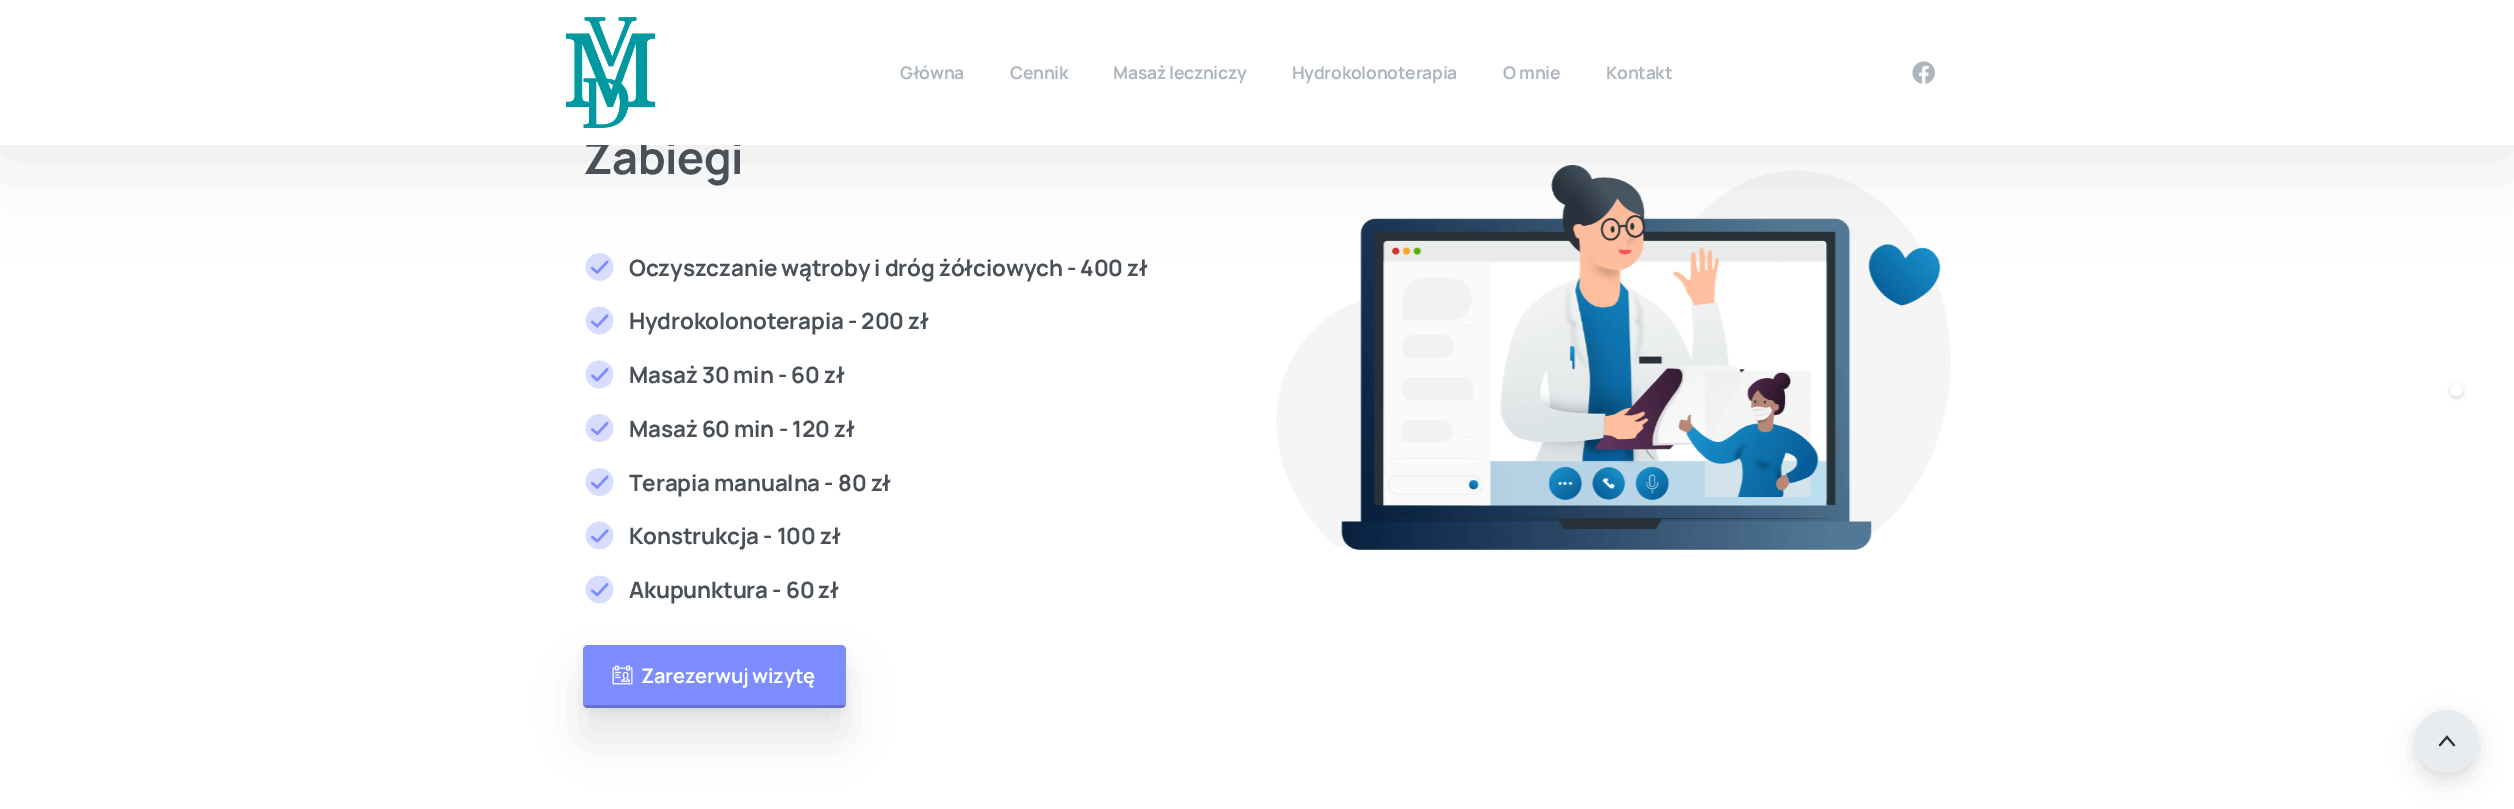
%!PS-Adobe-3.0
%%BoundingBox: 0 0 2514 809
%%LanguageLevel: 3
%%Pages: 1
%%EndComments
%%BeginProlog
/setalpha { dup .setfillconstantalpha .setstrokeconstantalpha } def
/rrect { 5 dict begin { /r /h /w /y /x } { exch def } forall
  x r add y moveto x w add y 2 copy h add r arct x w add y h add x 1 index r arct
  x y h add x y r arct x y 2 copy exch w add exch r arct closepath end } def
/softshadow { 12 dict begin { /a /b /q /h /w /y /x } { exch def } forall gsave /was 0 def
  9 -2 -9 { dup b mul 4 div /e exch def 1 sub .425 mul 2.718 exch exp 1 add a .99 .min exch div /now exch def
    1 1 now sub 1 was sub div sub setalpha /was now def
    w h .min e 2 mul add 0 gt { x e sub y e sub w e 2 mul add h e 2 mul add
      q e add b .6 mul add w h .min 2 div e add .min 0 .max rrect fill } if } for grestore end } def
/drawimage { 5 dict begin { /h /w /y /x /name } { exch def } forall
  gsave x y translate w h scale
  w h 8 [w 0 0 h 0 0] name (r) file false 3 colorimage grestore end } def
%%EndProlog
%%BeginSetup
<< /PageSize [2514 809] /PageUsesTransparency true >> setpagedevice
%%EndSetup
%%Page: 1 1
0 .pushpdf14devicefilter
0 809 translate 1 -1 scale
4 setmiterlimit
1 setgray
0 0 2514 809 rectfill
(images/3.raw) 585 253 29 28 drawimage
(images/8.raw) 1276 165 675 385 drawimage
0 setgray
0 6 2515 145 0 50 0.1 softshadow
(images/4.raw) 585 306 29 29 drawimage
(images/5.raw) 585 360 29 29 drawimage
(images/6.raw) 585 414 29 28 drawimage
(images/3.raw) 585 468 29 28 drawimage
(images/4.raw) 585 521 29 29 drawimage
(images/5.raw) 585 575 29 29 drawimage
583 675 263 63 5 22 0.1 softshadow
583 650 263 63 5 5 0.05 softshadow
0.49 0.553 1 setrgbcolor
583 645 263 63 5 rrect fill
(images/7.raw) 612 665 21 20 drawimage
gsave
583 645 263 63 5 rrect clip newpath
0.2 setalpha
0 setgray
583 705 263 3 1.5 rrect fill
grestore
0 setgray
2450 385 13 13 6.5 2 0.15 softshadow
1 setgray
2450 384 13 12 6 rrect fill
0 setgray
2415 720 63 63 31.5 12 0.1 softshadow
2415 713 63 62 31 4 0.05 softshadow
0.914 0.925 0.937 setrgbcolor
newpath 2446.5 741.5 31.5 0 360 arc closepath fill
(images/9.raw) 2438 735 18 12 drawimage
/Manrope-Bold [45 0 0 -45 0 0] selectfont
0.286 0.314 0.341 setrgbcolor
583 174 moveto -0.5 0 (Zabiegi) ashow
1 setgray
0 0 2514 145 rectfill
(images/2.raw) 1912 61 23 23 drawimage
/Manrope-Bold [17.5 0 0 -17.5 0 0] selectfont
0.678 0.71 0.741 setrgbcolor
1606 79 moveto -0.25 0 (Kontakt) ashow
1503 79 moveto -0.25 0 (O mnie) ashow
1292 79 moveto -0.25 0 (Hydrokolonoterapia) ashow
1113 79 moveto -0.25 0 (Masaż leczniczy) ashow
1010 79 moveto -0.25 0 (Cennik) ashow
900 79 moveto -0.25 0 (Główna) ashow
(images/1.raw) 566 17 90 111 drawimage
/Manrope-Bold [22.5 0 0 -22.5 0 0] selectfont
0.286 0.314 0.341 setrgbcolor
629 276 moveto -0.2 0 (Oczyszczanie wątroby i dróg żółciowych - 400 zł) ashow
629 329 moveto -0.2 0 (Hydrokolonoterapia - 200 zł) ashow
629 383 moveto -0.2 0 (Masaż 30 min - 60 zł) ashow
629 437 moveto -0.2 0 (Masaż 60 min - 120 zł) ashow
629 491 moveto -0.2 0 (Terapia manualna - 80 zł) ashow
629 544 moveto -0.2 0 (Konstrukcja - 100 zł) ashow
629 598 moveto -0.2 0 (Akupunktura - 60 zł) ashow
/Manrope-Bold [20 0 0 -20 0 0] selectfont
1 setgray
641 683 moveto -0.25 0 (Zarezerwuj wizytę) ashow
.poppdf14devicefilter showpage
%%EOF
